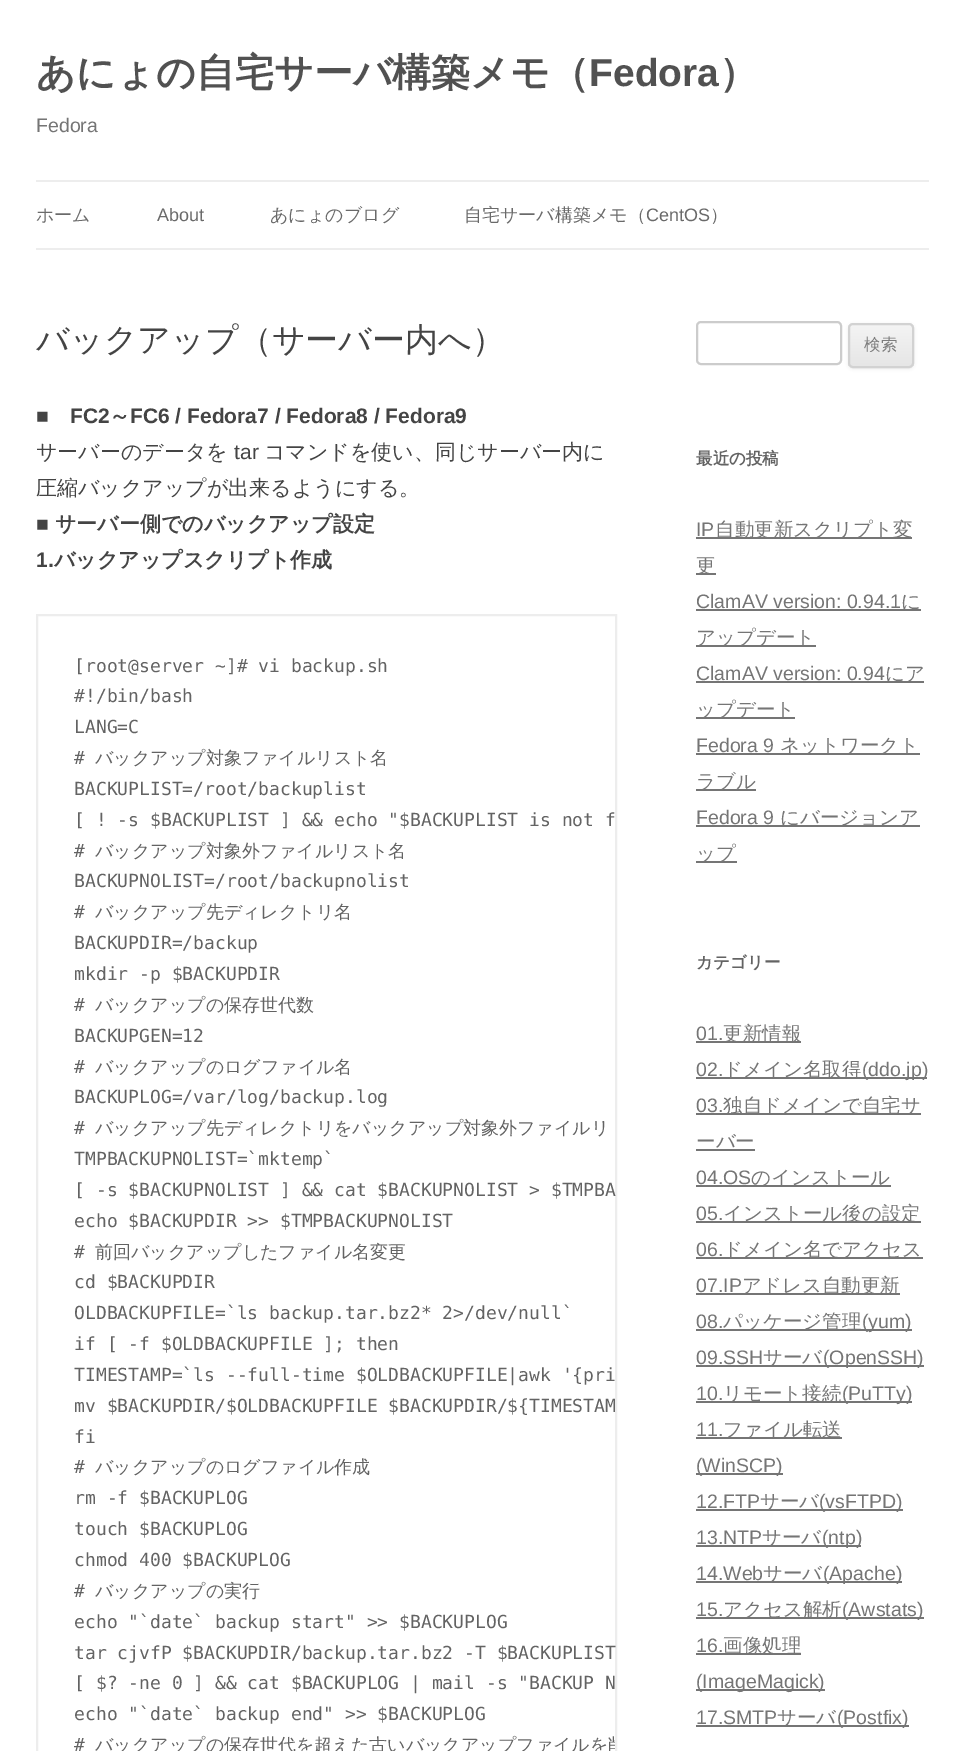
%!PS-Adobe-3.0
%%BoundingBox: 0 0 964 1751
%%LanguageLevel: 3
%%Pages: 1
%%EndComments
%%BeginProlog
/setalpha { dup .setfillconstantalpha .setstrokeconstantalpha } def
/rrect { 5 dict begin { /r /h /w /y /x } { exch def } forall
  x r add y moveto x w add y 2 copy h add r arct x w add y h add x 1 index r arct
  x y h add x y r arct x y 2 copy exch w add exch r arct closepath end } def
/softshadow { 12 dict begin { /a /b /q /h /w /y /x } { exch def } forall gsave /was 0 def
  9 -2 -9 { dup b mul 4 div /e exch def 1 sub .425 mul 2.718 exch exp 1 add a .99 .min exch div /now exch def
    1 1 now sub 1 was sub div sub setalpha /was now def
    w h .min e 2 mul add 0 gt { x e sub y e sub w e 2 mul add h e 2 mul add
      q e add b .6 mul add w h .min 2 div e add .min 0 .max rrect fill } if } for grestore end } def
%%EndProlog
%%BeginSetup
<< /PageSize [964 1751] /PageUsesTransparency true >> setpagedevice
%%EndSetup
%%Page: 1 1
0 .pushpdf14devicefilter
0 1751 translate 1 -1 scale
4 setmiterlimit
1 setgray
0 0 964 1751 rectfill
0.929 setgray
36 180 893 2 rectfill
36 248 893 2 rectfill
2 setlinewidth
37 615 579 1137 rectstroke
0.8 setgray
697 322 144 42 4 rrect stroke
0.251 setgray
848 324 66 45 5 1.5 0.1 softshadow
gsave
848 323 66 45 5 rrect clip newpath
gsave newpath 848 324 moveto 914 324 lineto 914 366 lineto 848 366 lineto closepath clip newpath
<< /ShadingType 2 /ColorSpace /DeviceRGB /Coords [881 324 881 366] /Extend [true true] /Function << /FunctionType 2 /Domain [0 1] /C0 [0.957 0.957 0.957] /C1 [0.902 0.902 0.902] /N 1 >> >> shfill grestore
grestore
0.824 setgray
849 324 64 43 4 rrect stroke
0.459 setgray
696 537 216 2 rectfill
696 573 20 2 rectfill
696 609 225 2 rectfill
696 645 120 2 rectfill
696 681 228 2 rectfill
696 717 99 2 rectfill
696 753 224 2 rectfill
696 789 60 2 rectfill
696 825 224 2 rectfill
696 861 41 2 rectfill
696 1041 105 2 rectfill
696 1077 231 2 rectfill
696 1113 225 2 rectfill
696 1149 59 2 rectfill
696 1185 195 2 rectfill
696 1221 225 2 rectfill
696 1257 227 2 rectfill
696 1293 204 2 rectfill
696 1329 216 2 rectfill
696 1365 228 2 rectfill
696 1401 216 2 rectfill
696 1437 146 2 rectfill
696 1473 87 2 rectfill
696 1509 207 2 rectfill
696 1545 165 2 rectfill
696 1581 206 2 rectfill
696 1617 228 2 rectfill
696 1653 105 2 rectfill
696 1689 129 2 rectfill
696 1725 213 2 rectfill
/WenQuanYiZenHei-Bold [39 0 0 -39 0 0] selectfont
0.318 setgray
36 86 moveto (あにょの自宅サーバ構築メモ（) show
/LiberationSans-Bold [39 0 0 -39 0 0] selectfont
589 86 moveto (Fedora) show
/WenQuanYiZenHei-Bold [39 0 0 -39 0 0] selectfont
719 86 moveto (）) show
/LiberationSans-Regular [19.5 0 0 -19.5 0 0] selectfont
0.459 setgray
36 132 moveto (Fedora) show
/WenQuanYiZenHei-Medium [18 0 0 -18 0 0] selectfont
0.416 setgray
36 221 moveto (ホーム) show
/LiberationSans-Regular [18 0 0 -18 0 0] selectfont
157 221 moveto (About) show
/WenQuanYiZenHei-Medium [18 0 0 -18 0 0] selectfont
270 221 moveto (あにょのブログ) show
464 221 moveto (自宅サーバ構築メモ（) show
/LiberationSans-Regular [18 0 0 -18 0 0] selectfont
646 221 moveto (CentOS) show
/WenQuanYiZenHei-Medium [18 0 0 -18 0 0] selectfont
710 221 moveto (）) show
/WenQuanYiZenHei-Medium [33 0 0 -33 0 0] selectfont
0.267 setgray
36 351 moveto (バックアップ（サーバー内へ）) show
/LiberationSans-Bold [21 0 0 -21 0 0] selectfont
36 423 moveto (■) show
70 423 moveto (FC2) show
/WenQuanYiZenHei-Bold [21 0 0 -21 0 0] selectfont
109 423 moveto (～) show
/LiberationSans-Bold [21 0 0 -21 0 0] selectfont
130 423 moveto (FC6 / Fedora7 / Fedora8 / Fedora9) show
/WenQuanYiZenHei-Medium [21 0 0 -21 0 0] selectfont
36 459 moveto (サーバーのデータを) show
/LiberationSans-Regular [21 0 0 -21 0 0] selectfont
234 459 moveto (tar) show
/WenQuanYiZenHei-Medium [21 0 0 -21 0 0] selectfont
264 459 moveto (コマンドを使い、同じサーバー内に) show
36 495 moveto (圧縮バックアップが出来るようにする。) show
/LiberationSans-Bold [21 0 0 -21 0 0] selectfont
36 531 moveto (■) show
/WenQuanYiZenHei-Bold [21 0 0 -21 0 0] selectfont
55 531 moveto (サーバー側でのバックアップ設定) show
/LiberationSans-Bold [21 0 0 -21 0 0] selectfont
36 567 moveto (1.) show
/WenQuanYiZenHei-Bold [21 0 0 -21 0 0] selectfont
54 567 moveto (バックアップスクリプト作成) show
/DejaVuSansMono-Regular [18 0 0 -18 0 0] selectfont
0.388 setgray
74 672 moveto ([root@server ~]# vi backup.sh) show
74 702 moveto (#!/bin/bash) show
74 733 moveto (LANG=C) show
74 764 moveto (#) show
/WenQuanYiZenHei-Medium [18 0 0 -18 0 0] selectfont
95 764 moveto (バックアップ対象ファイルリスト名) show
/DejaVuSansMono-Regular [18 0 0 -18 0 0] selectfont
74 795 moveto (BACKUPLIST=/root/backuplist) show
74 826 moveto ([ ! -s $BACKUPLIST ] && echo "$BACKUPLIST is not f) show
74 857 moveto (#) show
/WenQuanYiZenHei-Medium [18 0 0 -18 0 0] selectfont
95 857 moveto (バックアップ対象外ファイルリスト名) show
/DejaVuSansMono-Regular [18 0 0 -18 0 0] selectfont
74 887 moveto (BACKUPNOLIST=/root/backupnolist) show
74 918 moveto (#) show
/WenQuanYiZenHei-Medium [18 0 0 -18 0 0] selectfont
95 918 moveto (バックアップ先ディレクトリ名) show
/DejaVuSansMono-Regular [18 0 0 -18 0 0] selectfont
74 949 moveto (BACKUPDIR=/backup) show
74 980 moveto (mkdir -p $BACKUPDIR) show
74 1011 moveto (#) show
/WenQuanYiZenHei-Medium [18 0 0 -18 0 0] selectfont
95 1011 moveto (バックアップの保存世代数) show
/DejaVuSansMono-Regular [18 0 0 -18 0 0] selectfont
74 1042 moveto (BACKUPGEN=12) show
74 1073 moveto (#) show
/WenQuanYiZenHei-Medium [18 0 0 -18 0 0] selectfont
95 1073 moveto (バックアップのログファイル名) show
/DejaVuSansMono-Regular [18 0 0 -18 0 0] selectfont
74 1103 moveto (BACKUPLOG=/var/log/backup.log) show
74 1134 moveto (#) show
/WenQuanYiZenHei-Medium [18 0 0 -18 0 0] selectfont
95 1134 moveto (バックアップ先ディレクトリをバックアップ対象外ファイルリ) show
/DejaVuSansMono-Regular [18 0 0 -18 0 0] selectfont
74 1165 moveto (TMPBACKUPNOLIST=`mktemp`) show
74 1196 moveto ([ -s $BACKUPNOLIST ] && cat $BACKUPNOLIST > $TMPBA) show
74 1227 moveto (echo $BACKUPDIR >> $TMPBACKUPNOLIST) show
74 1258 moveto (#) show
/WenQuanYiZenHei-Medium [18 0 0 -18 0 0] selectfont
95 1258 moveto (前回バックアップしたファイル名変更) show
/DejaVuSansMono-Regular [18 0 0 -18 0 0] selectfont
74 1288 moveto (cd $BACKUPDIR) show
74 1319 moveto (OLDBACKUPFILE=`ls backup.tar.bz2* 2>/dev/null`) show
74 1350 moveto (if [ -f $OLDBACKUPFILE ]; then) show
74 1381 moveto (TIMESTAMP=`ls --full-time $OLDBACKUPFILE|awk '{pri) show
74 1412 moveto (mv $BACKUPDIR/$OLDBACKUPFILE $BACKUPDIR/${TIMESTAM) show
74 1443 moveto (fi) show
74 1473 moveto (#) show
/WenQuanYiZenHei-Medium [18 0 0 -18 0 0] selectfont
95 1473 moveto (バックアップのログファイル作成) show
/DejaVuSansMono-Regular [18 0 0 -18 0 0] selectfont
74 1504 moveto (rm -f $BACKUPLOG) show
74 1535 moveto (touch $BACKUPLOG) show
74 1566 moveto (chmod 400 $BACKUPLOG) show
74 1597 moveto (#) show
/WenQuanYiZenHei-Medium [18 0 0 -18 0 0] selectfont
95 1597 moveto (バックアップの実行) show
/DejaVuSansMono-Regular [18 0 0 -18 0 0] selectfont
74 1628 moveto (echo "`date` backup start" >> $BACKUPLOG) show
74 1659 moveto (tar cjvfP $BACKUPDIR/backup.tar.bz2 -T $BACKUPLIST) show
74 1689 moveto ([ $? -ne 0 ] && cat $BACKUPLOG | mail -s "BACKUP N) show
74 1720 moveto (echo "`date` backup end" >> $BACKUPLOG) show
74 1751 moveto (#) show
gsave
38 615 577 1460 rectclip
/WenQuanYiZenHei-Medium [18 0 0 -18 0 0] selectfont
95 1751 moveto (バックアップの保存世代を超えた古いバックアップファイルを削) show
grestore
/WenQuanYiZenHei-Medium [16.5 0 0 -16.5 0 0] selectfont
0.486 setgray
864 350 moveto (検索) show
/WenQuanYiZenHei-Bold [16.5 0 0 -16.5 0 0] selectfont
0.388 setgray
696 464 moveto (最近の投稿) show
/LiberationSans-Regular [19.5 0 0 -19.5 0 0] selectfont
0.459 setgray
696 536 moveto (IP) show
/WenQuanYiZenHei-Medium [19.5 0 0 -19.5 0 0] selectfont
715 536 moveto (自動更新スクリプト変) show
696 572 moveto (更) show
/LiberationSans-Regular [19.5 0 0 -19.5 0 0] selectfont
696 608 moveto (ClamAV version: 0.94.1) show
/WenQuanYiZenHei-Medium [19.5 0 0 -19.5 0 0] selectfont
901 608 moveto (に) show
696 644 moveto (アップデート) show
/LiberationSans-Regular [19.5 0 0 -19.5 0 0] selectfont
696 680 moveto (ClamAV version: 0.94) show
/WenQuanYiZenHei-Medium [19.5 0 0 -19.5 0 0] selectfont
885 680 moveto (にア) show
696 716 moveto (ップデート) show
/LiberationSans-Regular [19.5 0 0 -19.5 0 0] selectfont
696 752 moveto (Fedora 9) show
/WenQuanYiZenHei-Medium [19.5 0 0 -19.5 0 0] selectfont
780 752 moveto (ネットワークト) show
696 788 moveto (ラブル) show
/LiberationSans-Regular [19.5 0 0 -19.5 0 0] selectfont
696 824 moveto (Fedora 9) show
/WenQuanYiZenHei-Medium [19.5 0 0 -19.5 0 0] selectfont
780 824 moveto (にバージョンア) show
696 860 moveto (ップ) show
/WenQuanYiZenHei-Bold [16.5 0 0 -16.5 0 0] selectfont
0.388 setgray
696 968 moveto (カテゴリー) show
/LiberationSans-Regular [19.5 0 0 -19.5 0 0] selectfont
0.459 setgray
696 1040 moveto (01.) show
/WenQuanYiZenHei-Medium [19.5 0 0 -19.5 0 0] selectfont
723 1040 moveto (更新情報) show
/LiberationSans-Regular [19.5 0 0 -19.5 0 0] selectfont
696 1076 moveto (02.) show
/WenQuanYiZenHei-Medium [19.5 0 0 -19.5 0 0] selectfont
723 1076 moveto (ドメイン名取得) show
/LiberationSans-Regular [19.5 0 0 -19.5 0 0] selectfont
862 1076 moveto (\(ddo.jp\)) show
696 1112 moveto (03.) show
/WenQuanYiZenHei-Medium [19.5 0 0 -19.5 0 0] selectfont
723 1112 moveto (独自ドメインで自宅サ) show
696 1148 moveto (ーバー) show
/LiberationSans-Regular [19.5 0 0 -19.5 0 0] selectfont
696 1184 moveto (04.OS) show
/WenQuanYiZenHei-Medium [19.5 0 0 -19.5 0 0] selectfont
751 1184 moveto (のインストール) show
/LiberationSans-Regular [19.5 0 0 -19.5 0 0] selectfont
696 1220 moveto (05.) show
/WenQuanYiZenHei-Medium [19.5 0 0 -19.5 0 0] selectfont
723 1220 moveto (インストール後の設定) show
/LiberationSans-Regular [19.5 0 0 -19.5 0 0] selectfont
696 1256 moveto (06.) show
/WenQuanYiZenHei-Medium [19.5 0 0 -19.5 0 0] selectfont
723 1256 moveto (ドメイン名でアクセス) show
/LiberationSans-Regular [19.5 0 0 -19.5 0 0] selectfont
696 1292 moveto (07.IP) show
/WenQuanYiZenHei-Medium [19.5 0 0 -19.5 0 0] selectfont
742 1292 moveto (アドレス自動更新) show
/LiberationSans-Regular [19.5 0 0 -19.5 0 0] selectfont
696 1328 moveto (08.) show
/WenQuanYiZenHei-Medium [19.5 0 0 -19.5 0 0] selectfont
723 1328 moveto (パッケージ管理) show
/LiberationSans-Regular [19.5 0 0 -19.5 0 0] selectfont
862 1328 moveto (\(yum\)) show
696 1364 moveto (09.SSH) show
/WenQuanYiZenHei-Medium [19.5 0 0 -19.5 0 0] selectfont
763 1364 moveto (サーバ) show
/LiberationSans-Regular [19.5 0 0 -19.5 0 0] selectfont
823 1364 moveto (\(OpenSSH\)) show
696 1400 moveto (10.) show
/WenQuanYiZenHei-Medium [19.5 0 0 -19.5 0 0] selectfont
723 1400 moveto (リモート接続) show
/LiberationSans-Regular [19.5 0 0 -19.5 0 0] selectfont
842 1400 moveto (\(PuTTy\)) show
696 1436 moveto (11.) show
/WenQuanYiZenHei-Medium [19.5 0 0 -19.5 0 0] selectfont
723 1436 moveto (ファイル転送) show
/LiberationSans-Regular [19.5 0 0 -19.5 0 0] selectfont
696 1472 moveto (\(WinSCP\)) show
696 1508 moveto (12.FTP) show
/WenQuanYiZenHei-Medium [19.5 0 0 -19.5 0 0] selectfont
760 1508 moveto (サーバ) show
/LiberationSans-Regular [19.5 0 0 -19.5 0 0] selectfont
819 1508 moveto (\(vsFTPD\)) show
696 1544 moveto (13.NTP) show
/WenQuanYiZenHei-Medium [19.5 0 0 -19.5 0 0] selectfont
762 1544 moveto (サーバ) show
/LiberationSans-Regular [19.5 0 0 -19.5 0 0] selectfont
822 1544 moveto (\(ntp\)) show
696 1580 moveto (14.Web) show
/WenQuanYiZenHei-Medium [19.5 0 0 -19.5 0 0] selectfont
763 1580 moveto (サーバ) show
/LiberationSans-Regular [19.5 0 0 -19.5 0 0] selectfont
823 1580 moveto (\(Apache\)) show
696 1616 moveto (15.) show
/WenQuanYiZenHei-Medium [19.5 0 0 -19.5 0 0] selectfont
723 1616 moveto (アクセス解析) show
/LiberationSans-Regular [19.5 0 0 -19.5 0 0] selectfont
842 1616 moveto (\(Awstats\)) show
696 1652 moveto (16.) show
/WenQuanYiZenHei-Medium [19.5 0 0 -19.5 0 0] selectfont
723 1652 moveto (画像処理) show
/LiberationSans-Regular [19.5 0 0 -19.5 0 0] selectfont
696 1688 moveto (\(ImageMagick\)) show
696 1724 moveto (17.SMTP) show
/WenQuanYiZenHei-Medium [19.5 0 0 -19.5 0 0] selectfont
777 1724 moveto (サーバ) show
/LiberationSans-Regular [19.5 0 0 -19.5 0 0] selectfont
837 1724 moveto (\(Postfix\)) show
.poppdf14devicefilter showpage
%%EOF
